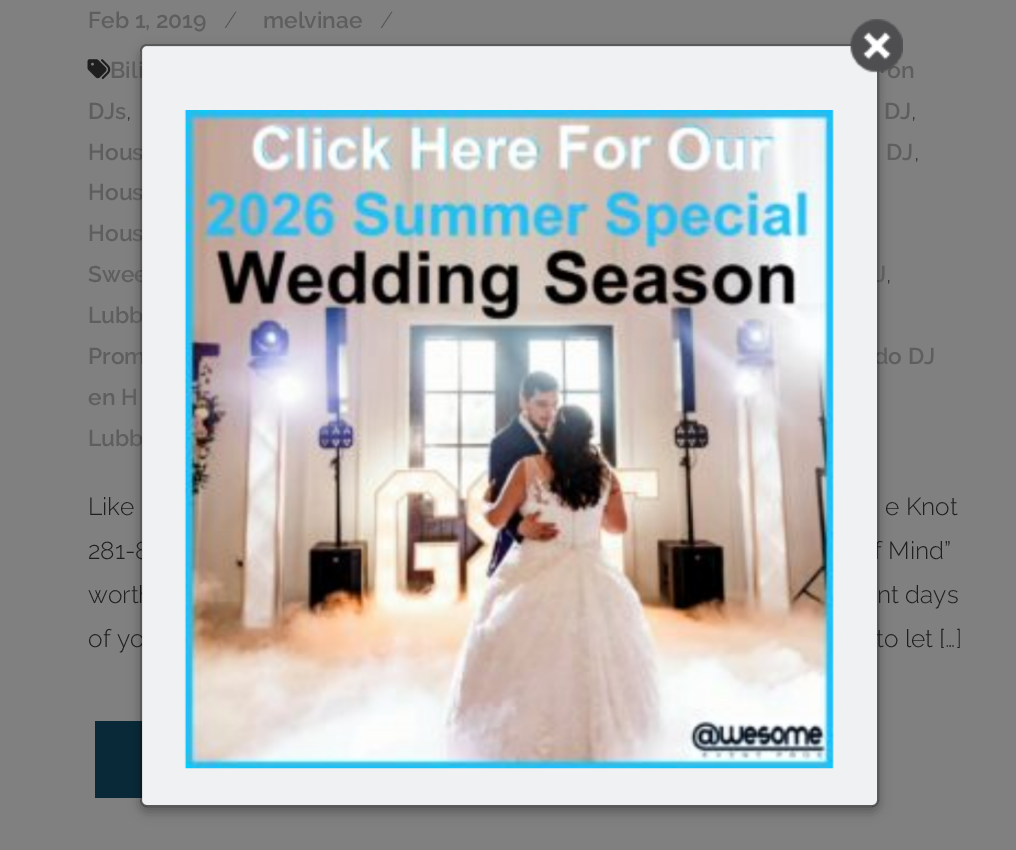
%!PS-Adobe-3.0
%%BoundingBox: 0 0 1016 850
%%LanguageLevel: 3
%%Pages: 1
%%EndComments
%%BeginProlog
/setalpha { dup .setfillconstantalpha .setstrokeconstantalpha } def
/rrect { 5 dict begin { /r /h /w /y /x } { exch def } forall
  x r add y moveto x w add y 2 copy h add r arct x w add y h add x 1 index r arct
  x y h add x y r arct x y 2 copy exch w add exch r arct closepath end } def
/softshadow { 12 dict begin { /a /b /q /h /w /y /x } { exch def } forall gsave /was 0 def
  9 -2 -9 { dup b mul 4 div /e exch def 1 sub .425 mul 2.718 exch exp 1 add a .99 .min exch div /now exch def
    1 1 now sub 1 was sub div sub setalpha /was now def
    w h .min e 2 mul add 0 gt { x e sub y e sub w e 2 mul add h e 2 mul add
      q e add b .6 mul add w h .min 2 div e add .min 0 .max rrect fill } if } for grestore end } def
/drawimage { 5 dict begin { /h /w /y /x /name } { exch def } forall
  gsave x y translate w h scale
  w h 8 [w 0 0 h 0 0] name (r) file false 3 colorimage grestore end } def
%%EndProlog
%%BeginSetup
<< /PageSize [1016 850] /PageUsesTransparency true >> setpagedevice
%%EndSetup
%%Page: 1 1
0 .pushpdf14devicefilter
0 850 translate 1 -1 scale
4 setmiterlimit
0.502 setgray
0 0 1016 850 rectfill
(images/1.raw) 87 59 24 21 drawimage
0.035 0.161 0.224 setrgbcolor
95 721 47 77 rectfill
gsave
newpath 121 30 moveto 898 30 lineto 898 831 lineto 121 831 lineto closepath 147 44 moveto 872 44 lineto 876 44 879 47 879 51 curveto 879 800 lineto 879 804 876 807 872 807 curveto 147 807 lineto 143 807 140 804 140 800 curveto 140 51 lineto 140 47 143 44 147 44 curveto closepath eoclip newpath
0 setgray
140 49 739 763 7 6 0.3 softshadow
grestore
/Raleway-SemiBold [22.75 0 0 -22.75 0 0] selectfont
0.369 setgray
88 28 moveto (Feb 1, 2019) show
/Raleway-Light [22.75 0 0 -22.75 0 0] selectfont
0.333 setgray
224 28 moveto (/) show
/Raleway-SemiBold [22.75 0 0 -22.75 0 0] selectfont
0.369 setgray
263 28 moveto (melvinae) show
/Raleway-Light [22.75 0 0 -22.75 0 0] selectfont
0.333 setgray
380 28 moveto (/) show
/Raleway-SemiBold [22.75 0 0 -22.75 0 0] selectfont
0.369 setgray
110 78 moveto (Bili) show
887 78 moveto (on) show
88 119 moveto (DJs) show
/Raleway-Light [22.75 0 0 -22.75 0 0] selectfont
0.122 setgray
126 119 moveto (,) show
/Raleway-SemiBold [22.75 0 0 -22.75 0 0] selectfont
0.369 setgray
884 119 moveto (DJ) show
/Raleway-Light [22.75 0 0 -22.75 0 0] selectfont
0.122 setgray
911 119 moveto (,) show
/Raleway-SemiBold [22.75 0 0 -22.75 0 0] selectfont
0.369 setgray
88 160 moveto (Hous) show
886 160 moveto (DJ) show
/Raleway-Light [22.75 0 0 -22.75 0 0] selectfont
0.122 setgray
914 160 moveto (,) show
/Raleway-SemiBold [22.75 0 0 -22.75 0 0] selectfont
0.369 setgray
88 200 moveto (Hous) show
88 241 moveto (Hous) show
88 282 moveto (Swee) show
875 282 moveto (J) show
/Raleway-Light [22.75 0 0 -22.75 0 0] selectfont
0.122 setgray
886 282 moveto (,) show
/Raleway-SemiBold [22.75 0 0 -22.75 0 0] selectfont
0.369 setgray
88 323 moveto (Lubb) show
88 364 moveto (Prom) show
874 364 moveto (do DJ) show
88 405 moveto (en H) show
88 446 moveto (Lubb) show
/Raleway-Light [24.5 0 0 -24.5 0 0] selectfont
0.122 setgray
88 515 moveto (Like) show
885 515 moveto (e Knot) show
88 559 moveto (281-8) show
874 559 moveto (f Mind”) show
88 603 moveto (worth) show
877 603 moveto (nt days) show
88 647 moveto (of yo) show
876 647 moveto (to let […]) show
0.941 0.945 0.949 setrgbcolor
142 46 735 759 5 rrect fill
0.3 setalpha
0 setgray
2 setlinewidth
141 45 737 761 6 rrect stroke
1 setalpha
(images/2.raw) 850 19 53 54 drawimage
(images/3.raw) 184 110 650 659 drawimage
.poppdf14devicefilter showpage
%%EOF
